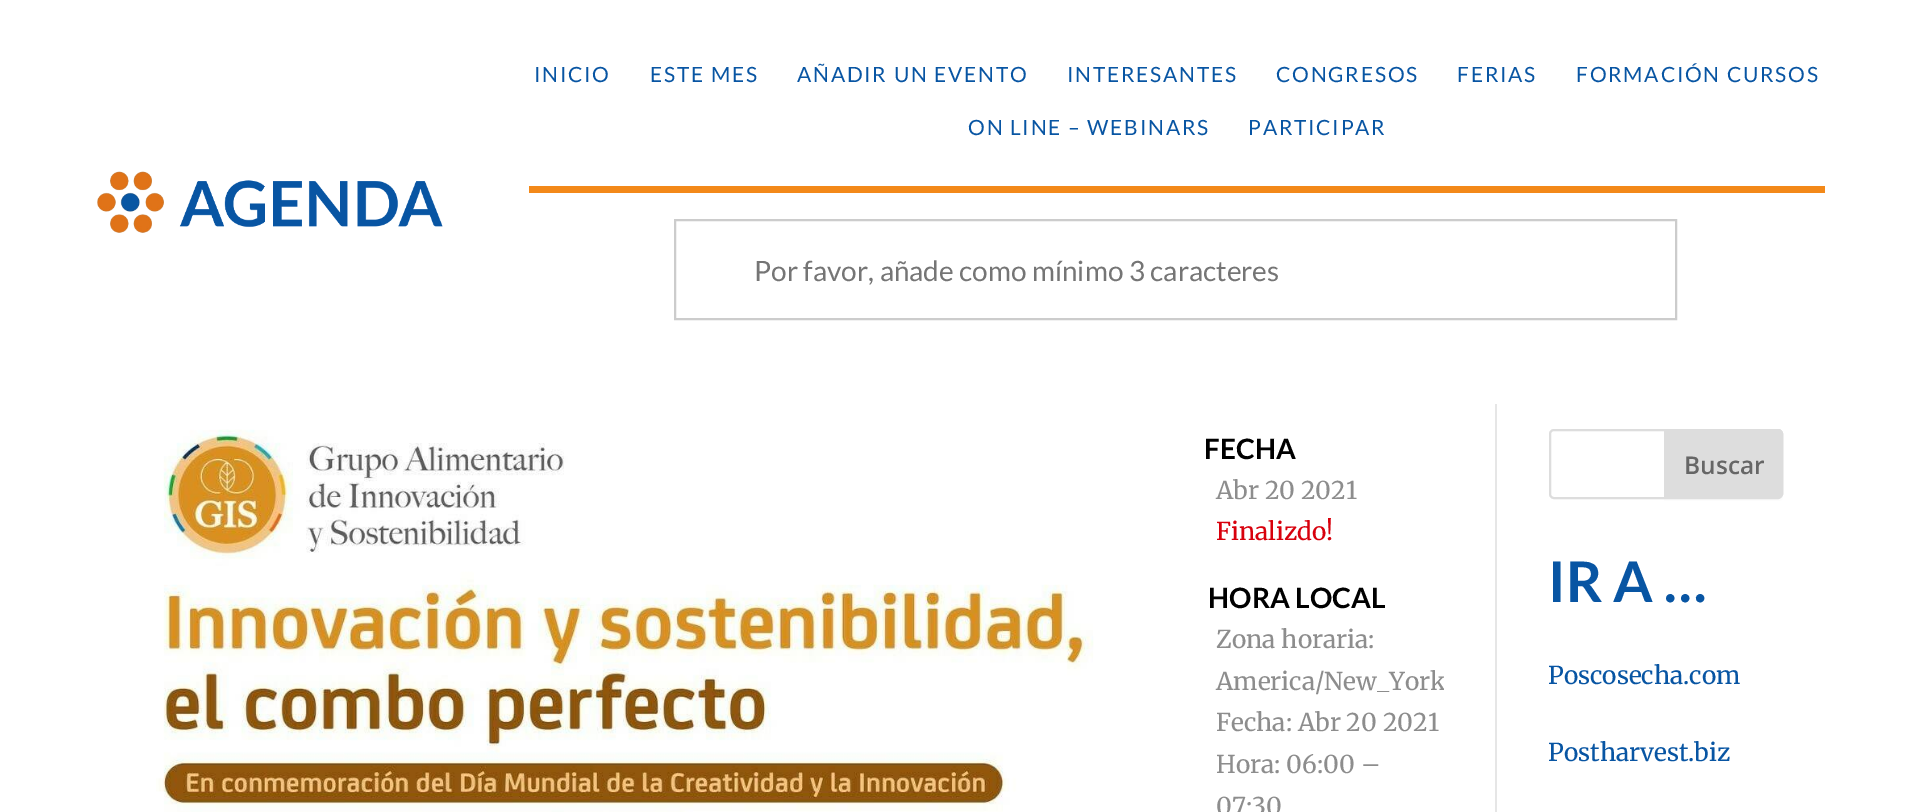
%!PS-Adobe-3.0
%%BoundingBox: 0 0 1921 812
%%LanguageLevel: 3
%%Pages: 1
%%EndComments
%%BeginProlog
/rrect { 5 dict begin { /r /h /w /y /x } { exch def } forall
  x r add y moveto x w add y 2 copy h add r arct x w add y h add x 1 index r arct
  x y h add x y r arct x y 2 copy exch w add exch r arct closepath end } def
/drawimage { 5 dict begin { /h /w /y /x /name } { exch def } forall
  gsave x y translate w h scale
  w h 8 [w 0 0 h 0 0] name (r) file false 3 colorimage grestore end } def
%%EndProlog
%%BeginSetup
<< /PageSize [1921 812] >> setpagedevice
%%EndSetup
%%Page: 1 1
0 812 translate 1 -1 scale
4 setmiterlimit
1 setgray
0 0 1921 812 rectfill
(images/1.raw) 97 171 346 62 drawimage
0.953 0.537 0.098 setrgbcolor
529 186 1296 7 rectfill
0.8 setgray
2 setlinewidth
675 220 1001 99 rectstroke
(images/2.raw) 156 429 938 383 drawimage
0.902 setgray
1495 404 2 408 rectfill
0.867 setgray
1550 430 232 68 4 rrect stroke
0.988 setgray
newpath 1664 431 moveto 1664 501 lineto 1778 501 lineto 1781 501 1783 499 1783 496 curveto 1783 495 lineto 1782 497 1780 499 1778 499 curveto 1664 499 lineto closepath fill
0.867 setgray
newpath 1665 430 moveto 1778 430 lineto 1780 430 1782 432 1782 434 curveto 1782 494 lineto 1782 496 1780 498 1778 498 curveto 1665 498 lineto closepath gsave fill grestore
stroke
/Lato-Regular [21 0 0 -21 0 0] selectfont
0.031 0.333 0.639 setrgbcolor
534 82 moveto 1.75 0 (INICIO) ashow
650 82 moveto 1.75 0 (ESTE MES) ashow
797 82 moveto 1.75 0 (AÑADIR UN EVENTO) ashow
1067 82 moveto 1.75 0 (INTERESANTES) ashow
1276 82 moveto 1.75 0 (CONGRESOS) ashow
1457 82 moveto 1.75 0 (FERIAS) ashow
1576 82 moveto 1.75 0 (FORMACIÓN CURSOS) ashow
968 135 moveto 1.75 0 (ON LINE – WEBINARS) ashow
1248 135 moveto 1.75 0 (PARTICIPAR) ashow
/Lato-Regular [28 0 0 -28 0 0] selectfont
0.459 setgray
754 281 moveto (Por favor, añade como mínimo 3 caracteres) show
/Lato-Bold [28 0 0 -28 0 0] selectfont
0 setgray
1204 459 moveto (FECHA) show
/Merriweather-Regular [24.5 0 0 -24.5 0 0] selectfont
0.553 setgray
1216 499 moveto (Abr 20 2021) show
0.847 0 0.047 setrgbcolor
1216 540 moveto (Finalizdo!) show
/Lato-Bold [28 0 0 -28 0 0] selectfont
0 setgray
1208 608 moveto (HORA LOCAL) show
/Merriweather-Regular [24.5 0 0 -24.5 0 0] selectfont
0.553 setgray
1216 648 moveto (Zona horaria:) show
gsave
1155 579 289 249 rectclip
1216 690 moveto (America/New_York) show
grestore
1216 731 moveto (Fecha: Abr 20 2021) show
1216 773 moveto (Hora: 06:00 –) show
1216 815 moveto (07:30) show
/OpenSans-SemiBold [24.5 0 0 -24.5 0 0] selectfont
0.4 setgray
1684 474 moveto (Buscar) show
/Lato-Bold [56 0 0 -56 0 0] selectfont
0.031 0.333 0.639 setrgbcolor
1548 602 moveto (IR A …) show
/Merriweather-Regular [24.5 0 0 -24.5 0 0] selectfont
1548 684 moveto (Poscosecha.com) show
1548 761 moveto (Postharvest.biz) show
showpage
%%EOF
